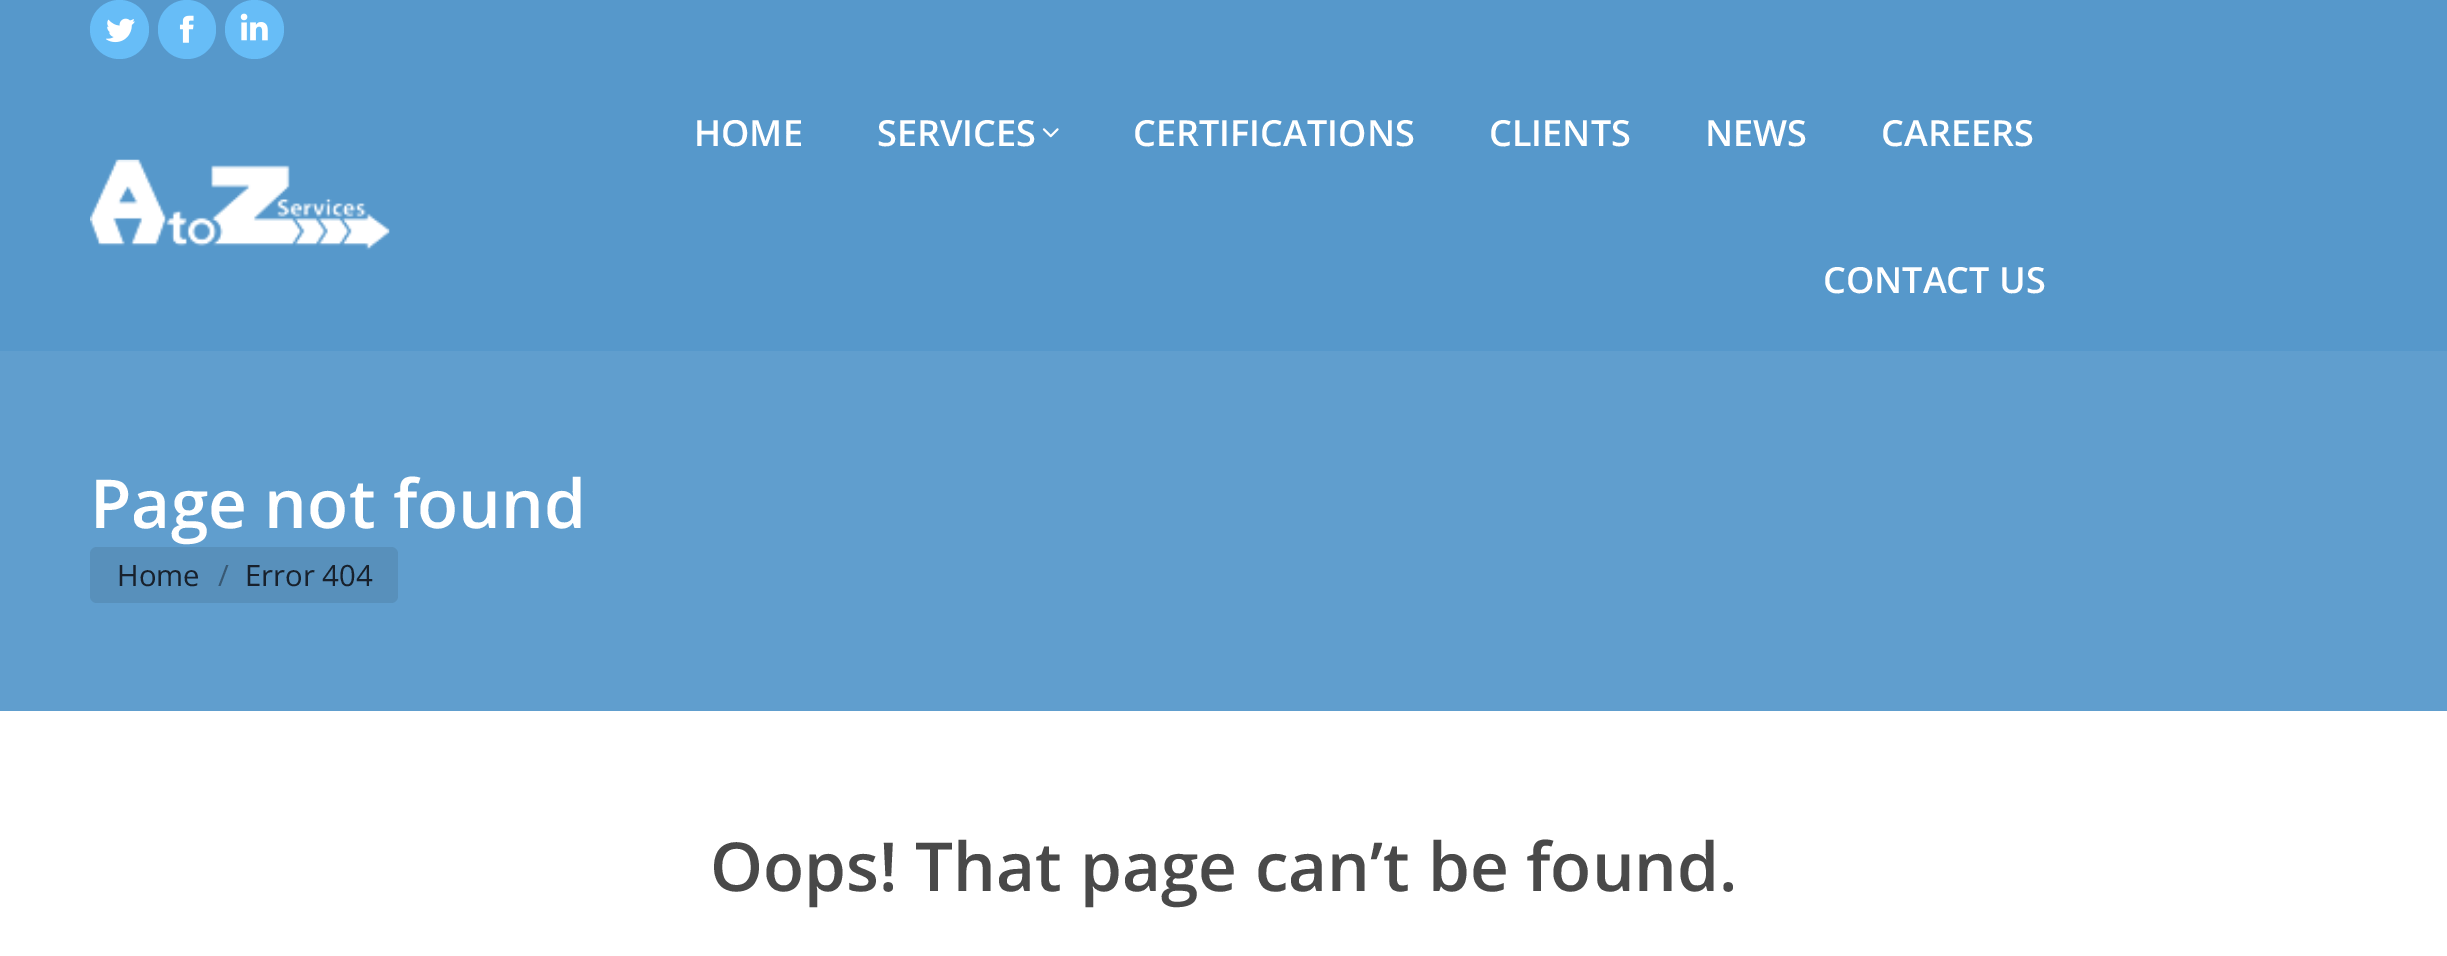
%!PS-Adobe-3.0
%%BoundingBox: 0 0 2447 956
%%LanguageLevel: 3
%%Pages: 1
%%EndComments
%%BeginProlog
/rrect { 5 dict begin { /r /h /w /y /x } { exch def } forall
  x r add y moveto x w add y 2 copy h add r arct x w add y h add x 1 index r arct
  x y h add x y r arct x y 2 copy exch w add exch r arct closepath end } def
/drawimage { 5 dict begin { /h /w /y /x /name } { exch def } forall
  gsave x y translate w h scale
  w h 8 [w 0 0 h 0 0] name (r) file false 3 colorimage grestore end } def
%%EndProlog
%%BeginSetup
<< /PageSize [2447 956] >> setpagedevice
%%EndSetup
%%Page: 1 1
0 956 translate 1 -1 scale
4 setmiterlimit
1 setgray
0 0 2447 956 rectfill
0.337 0.596 0.796 setrgbcolor
0 0 2447 351 rectfill
0.404 0.741 0.969 setrgbcolor
newpath 119.5 29.5 29.5 0 360 arc closepath fill
(images/1.raw) 106 18 29 25 drawimage
158 0 58 59 29 rrect fill
(images/2.raw) 179 15 15 28 drawimage
newpath 254.5 29.5 29.5 0 360 arc closepath fill
(images/3.raw) 240 13 28 28 drawimage
(images/4.raw) 90 159 300 91 drawimage
(images/5.raw) 1042 128 17 10 drawimage
0.376 0.62 0.808 setrgbcolor
0 351 2447 360 rectfill
0.345 0.565 0.733 setrgbcolor
90 547 308 56 7 rrect fill
/OpenSans-SemiBold [36 0 0 -36 0 0] selectfont
1 setgray
694 146 moveto (HOME) show
877 146 moveto (SERVICES) show
1133 146 moveto (CERTIFICATIONS) show
1489 146 moveto (CLIENTS) show
1705 146 moveto (NEWS) show
1881 146 moveto (CAREERS) show
1823 293 moveto (CONTACT US) show
/OpenSans-SemiBold [67.5 0 0 -67.5 0 0] selectfont
90 528 moveto (Page not found) show
/OpenSans-Regular [29.25 0 0 -29.25 0 0] selectfont
0.094 0.129 0.173 setrgbcolor
117 586 moveto (Home) show
0.22 0.349 0.455 setrgbcolor
218 586 moveto (/) show
0.094 0.129 0.173 setrgbcolor
245 586 moveto (Error 404) show
/OpenSans-SemiBold [67.5 0 0 -67.5 0 0] selectfont
0.286 setgray
710 891 moveto (Oops! That page can’t be found.) show
showpage
%%EOF
